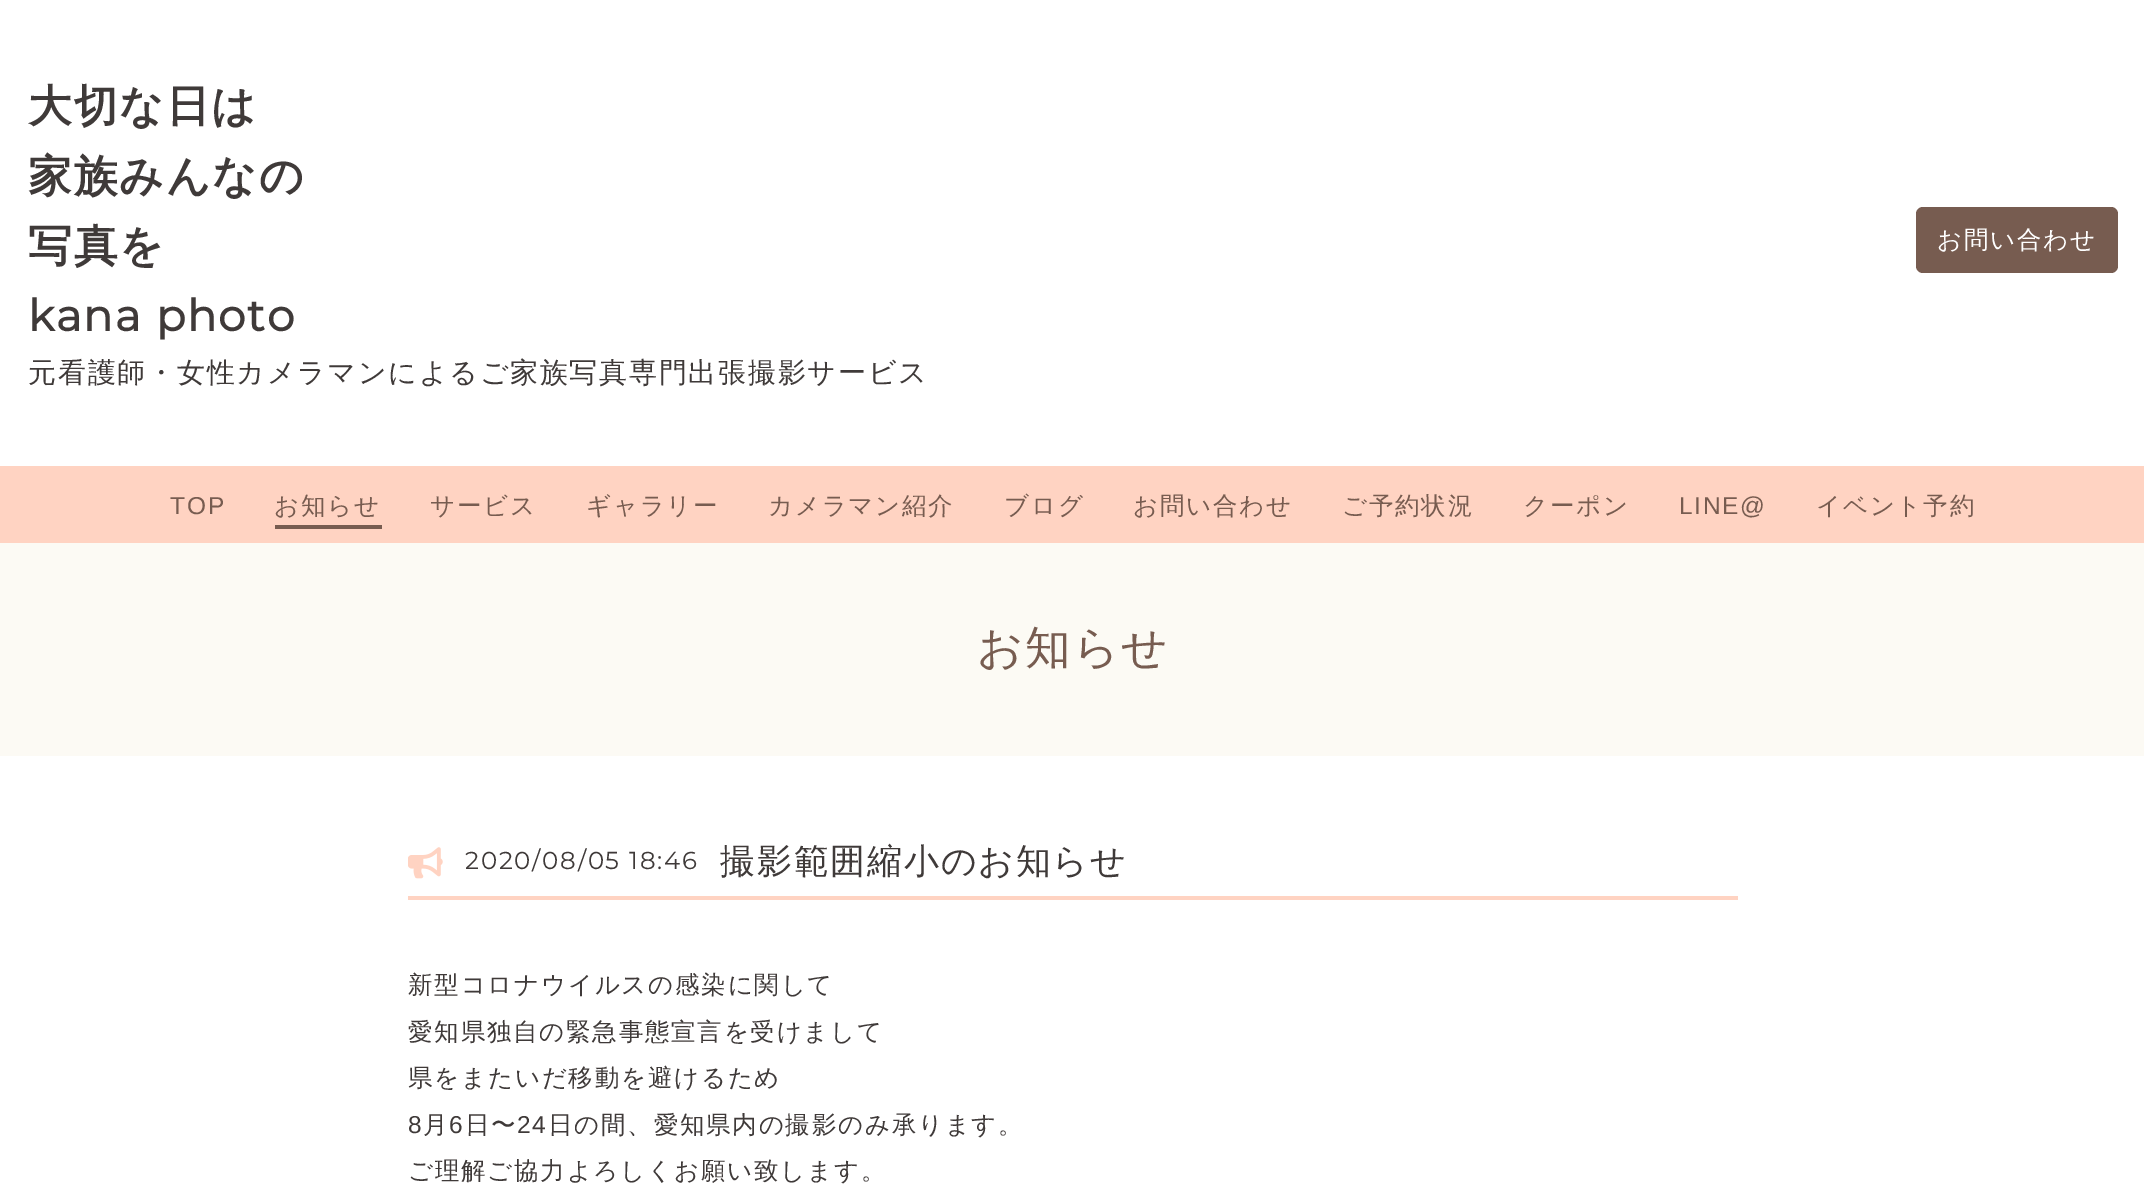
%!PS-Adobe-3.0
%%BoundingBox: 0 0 2144 1204
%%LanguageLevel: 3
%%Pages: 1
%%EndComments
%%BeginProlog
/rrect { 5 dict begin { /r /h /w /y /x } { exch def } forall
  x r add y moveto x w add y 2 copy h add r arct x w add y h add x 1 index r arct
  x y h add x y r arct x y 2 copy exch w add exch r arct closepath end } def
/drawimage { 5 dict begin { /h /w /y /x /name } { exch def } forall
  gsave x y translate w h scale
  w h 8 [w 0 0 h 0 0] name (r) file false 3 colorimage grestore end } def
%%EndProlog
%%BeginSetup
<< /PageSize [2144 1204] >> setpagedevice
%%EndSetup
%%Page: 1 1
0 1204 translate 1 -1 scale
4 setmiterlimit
1 setgray
0 0 2144 1204 rectfill
0.467 0.361 0.314 setrgbcolor
1916 207 202 66 7 rrect fill
1 0.827 0.761 setrgbcolor
0 466 2144 77 rectfill
0.467 0.361 0.314 setrgbcolor
275 525 107 4 rectfill
0.988 0.98 0.957 setrgbcolor
0 543 2144 213 rectfill
1 0.827 0.761 setrgbcolor
408 896 1330 4 rectfill
(images/1.raw) 408 847 35 32 drawimage
/WenQuanYiZenHei-Bold [43.75 0 0 -43.75 0 0] selectfont
0.247 0.227 0.224 setrgbcolor
28 121 moveto 1.75 0 (大切な日は) ashow
28 191 moveto 1.75 0 (家族みんなの) ashow
28 261 moveto 1.75 0 (写真を) ashow
/Montserrat-Bold [43.75 0 0 -43.75 0 0] selectfont
28 331 moveto 1.75 0 (kana photo) ashow
/WenQuanYiZenHei-Medium [28 0 0 -28 0 0] selectfont
28 382 moveto 1.75 0 (元看護師・女性カメラマンによるご家族写真専門出張撮影サービス) ashow
/WenQuanYiZenHei-Medium [24.5 0 0 -24.5 0 0] selectfont
1 setgray
1937 248 moveto 1.75 0 (お問い合わせ) ashow
/LiberationSans-Regular [24.5 0 0 -24.5 0 0] selectfont
0.467 0.361 0.314 setrgbcolor
170 514 moveto 1.75 0 (TOP) ashow
/WenQuanYiZenHei-Medium [24.5 0 0 -24.5 0 0] selectfont
274 514 moveto 1.75 0 (お知らせ) ashow
430 514 moveto 1.75 0 (サービス) ashow
586 514 moveto 1.75 0 (ギャラリー) ashow
768 514 moveto 1.75 0 (カメラマン紹介) ashow
1004 514 moveto 1.75 0 (ブログ) ashow
1133 514 moveto 1.75 0 (お問い合わせ) ashow
1342 514 moveto 1.75 0 (ご予約状況) ashow
1523 514 moveto 1.75 0 (クーポン) ashow
/LiberationSans-Regular [24.5 0 0 -24.5 0 0] selectfont
1679 514 moveto 1.75 0 (LINE@) ashow
/WenQuanYiZenHei-Medium [24.5 0 0 -24.5 0 0] selectfont
1816 514 moveto 1.75 0 (イベント予約) ashow
/WenQuanYiZenHei-Medium [45.5 0 0 -45.5 0 0] selectfont
977 663 moveto 1.75 0 (お知らせ) ashow
/Montserrat-Thin [24.5 0 0 -24.5 0 0] selectfont
0.247 0.227 0.224 setrgbcolor
465 869 moveto 1.75 0 (2020/08/05 18:46) ashow
/WenQuanYiZenHei-Medium [35 0 0 -35 0 0] selectfont
720 873 moveto 1.75 0 (撮影範囲縮小のお知らせ) ashow
/WenQuanYiZenHei-Medium [24.5 0 0 -24.5 0 0] selectfont
408 993 moveto 1.75 0 (新型コロナウイルスの感染に関して) ashow
408 1040 moveto 1.75 0 (愛知県独自の緊急事態宣言を受けまして) ashow
408 1086 moveto 1.75 0 (県をまたいだ移動を避けるため) ashow
/LiberationSans-Regular [24.5 0 0 -24.5 0 0] selectfont
408 1133 moveto 1.75 0 (8) ashow
/WenQuanYiZenHei-Medium [24.5 0 0 -24.5 0 0] selectfont
423 1133 moveto 1.75 0 (月) ashow
/LiberationSans-Regular [24.5 0 0 -24.5 0 0] selectfont
449 1133 moveto 1.75 0 (6) ashow
/WenQuanYiZenHei-Medium [24.5 0 0 -24.5 0 0] selectfont
465 1133 moveto 1.75 0 (日〜) ashow
/LiberationSans-Regular [24.5 0 0 -24.5 0 0] selectfont
517 1133 moveto 1.75 0 (24) ashow
/WenQuanYiZenHei-Medium [24.5 0 0 -24.5 0 0] selectfont
548 1133 moveto 1.75 0 (日の間、愛知県内の撮影のみ承ります。) ashow
408 1179 moveto 1.75 0 (ご理解ご協力よろしくお願い致します。) ashow
showpage
%%EOF
